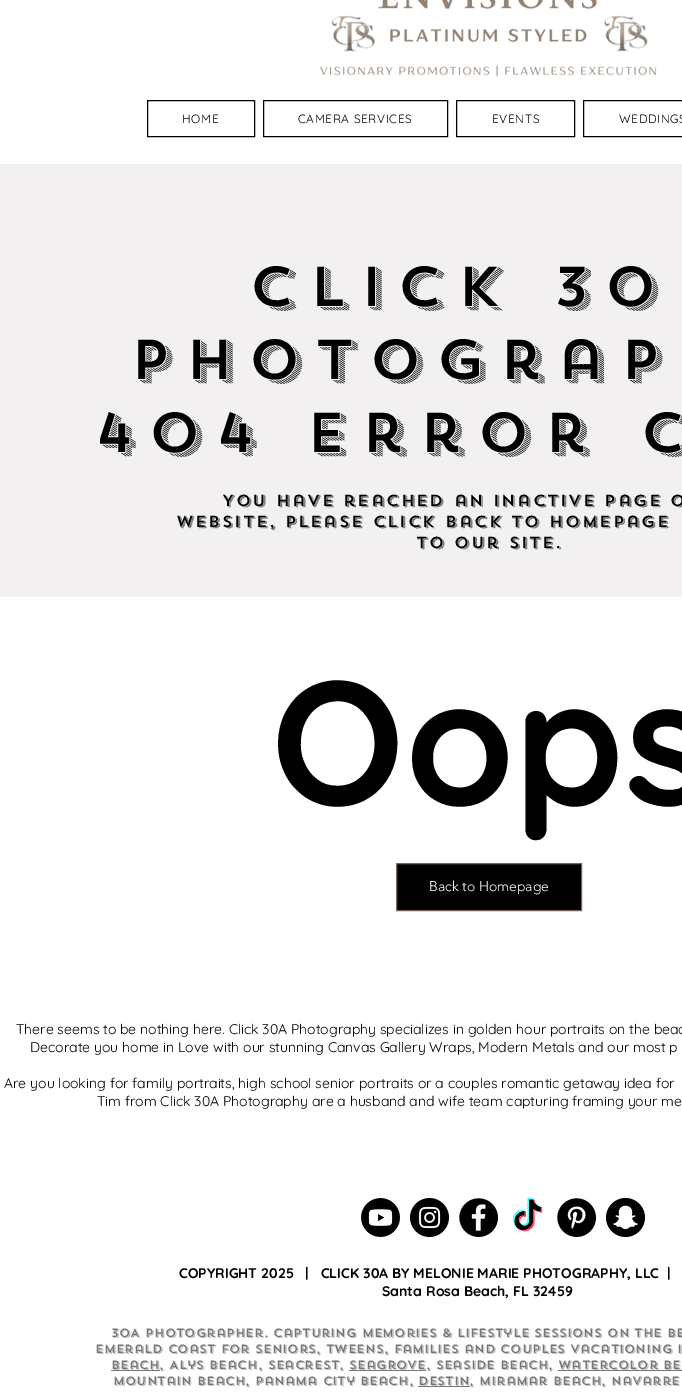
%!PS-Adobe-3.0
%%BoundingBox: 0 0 682 1392
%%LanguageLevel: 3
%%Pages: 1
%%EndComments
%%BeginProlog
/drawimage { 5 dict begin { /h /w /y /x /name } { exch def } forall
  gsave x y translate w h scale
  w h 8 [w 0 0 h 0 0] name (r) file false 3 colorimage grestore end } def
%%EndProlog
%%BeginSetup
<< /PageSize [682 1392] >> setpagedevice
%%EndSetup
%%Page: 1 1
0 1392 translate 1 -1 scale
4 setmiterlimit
1 setgray
0 0 682 1392 rectfill
(images/1.raw) 320 0 337 77 drawimage
0 setgray
147.5 100.5 107 36 rectstroke
263.5 100.5 184 36 rectstroke
456.5 100.5 118 36 rectstroke
583.5 100.5 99 36 rectstroke
0.949 0.941 0.941 setrgbcolor
0 164 682 433 rectfill
0 setgray
newpath 396.5 863.5 moveto 581.5 863.5 lineto 581.5 910.5 lineto 396.5 910.5 lineto closepath gsave fill grestore
0.494 0.388 0.361 setrgbcolor
stroke
(images/2.raw) 361 1198 39 39 drawimage
(images/3.raw) 410 1198 39 39 drawimage
(images/4.raw) 459 1198 39 39 drawimage
(images/5.raw) 512 1198 31 34 drawimage
(images/6.raw) 557 1198 39 39 drawimage
(images/7.raw) 606 1198 39 39 drawimage
0.459 setgray
111 1370 49 1 rectfill
349 1370 77 1 rectfill
558 1370 124 1 rectfill
418 1386 52 1 rectfill
/Quicksand-Regular [12 0 0 -12 0 0] selectfont
0 setgray
182 123 moveto 0.6 0 (HOME) ashow
298 123 moveto 0.6 0 (CAMERA SERVICES) ashow
492 123 moveto 0.6 0 (EVENTS) ashow
619 123 moveto 0.6 0 (WEDDINGS) ashow
/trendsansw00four-Medium [56 0 0 -56 0 0] selectfont
249 306 moveto 14 0 (Click 30) ashow
130 379 moveto 14 0 (Photograp) ashow
95 452 moveto 14 0 (404 error c) ashow
/trendsansw00four-Medium [16 0 0 -16 0 0] selectfont
222 506 moveto 1.6 0 (You have reached an inactive page o) ashow
176 527 moveto 1.6 0 (website, please click back to homepage) ashow
416 548 moveto 1.6 0 (to our site.) ashow
/Quicksand-Bold [176 0 0 -176 0 0] selectfont
271 805 moveto (Oops) show
/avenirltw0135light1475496-Light [14 0 0 -14 0 0] selectfont
1 setgray
429 891 moveto (Back to Homepage) show
/Quicksand-Regular [14 0 0 -14 0 0] selectfont
0 setgray
16 1034 moveto (There seems to be nothing here. Click 30A Photography specializes in golden hour portraits on the beac) show
30 1052 moveto (Decorate you home in Love with our stunning Canvas Gallery Wraps, Modern Metals and our most p) show
4 1088 moveto (Are you looking for family portraits, high school senior portraits or a couples romantic getaway idea for) show
97 1106 moveto (Tim from Click 30A Photography are a husband and wife team capturing framing your me) show
/Quicksand-Bold [14 0 0 -14 0 0] selectfont
179 1278 moveto (COPYRIGHT 2025   |   CLICK 30A BY MELONIE MARIE PHOTOGRAPHY, LLC  |) show
382 1296 moveto (Santa Rosa Beach, FL 32459) show
/trendsansw00four-Medium [12 0 0 -12 0 0] selectfont
0.459 setgray
111 1337 moveto (30A Photographer. Capturing memories & lifestyle sessions on the be) show
95 1353 moveto (Emerald Coast for seniors, tweens, families and couples vacationing i) show
111 1369 moveto (Beach, Alys Beach, Seacrest,) show
349 1369 moveto (Seagrove, Seaside Beach,) show
558 1369 moveto (Watercolor Be) show
113 1385 moveto (Mountain Beach, Panama City Beach,) show
418 1385 moveto (Destin, Miramar Beach, Navarre) show
showpage
%%EOF
